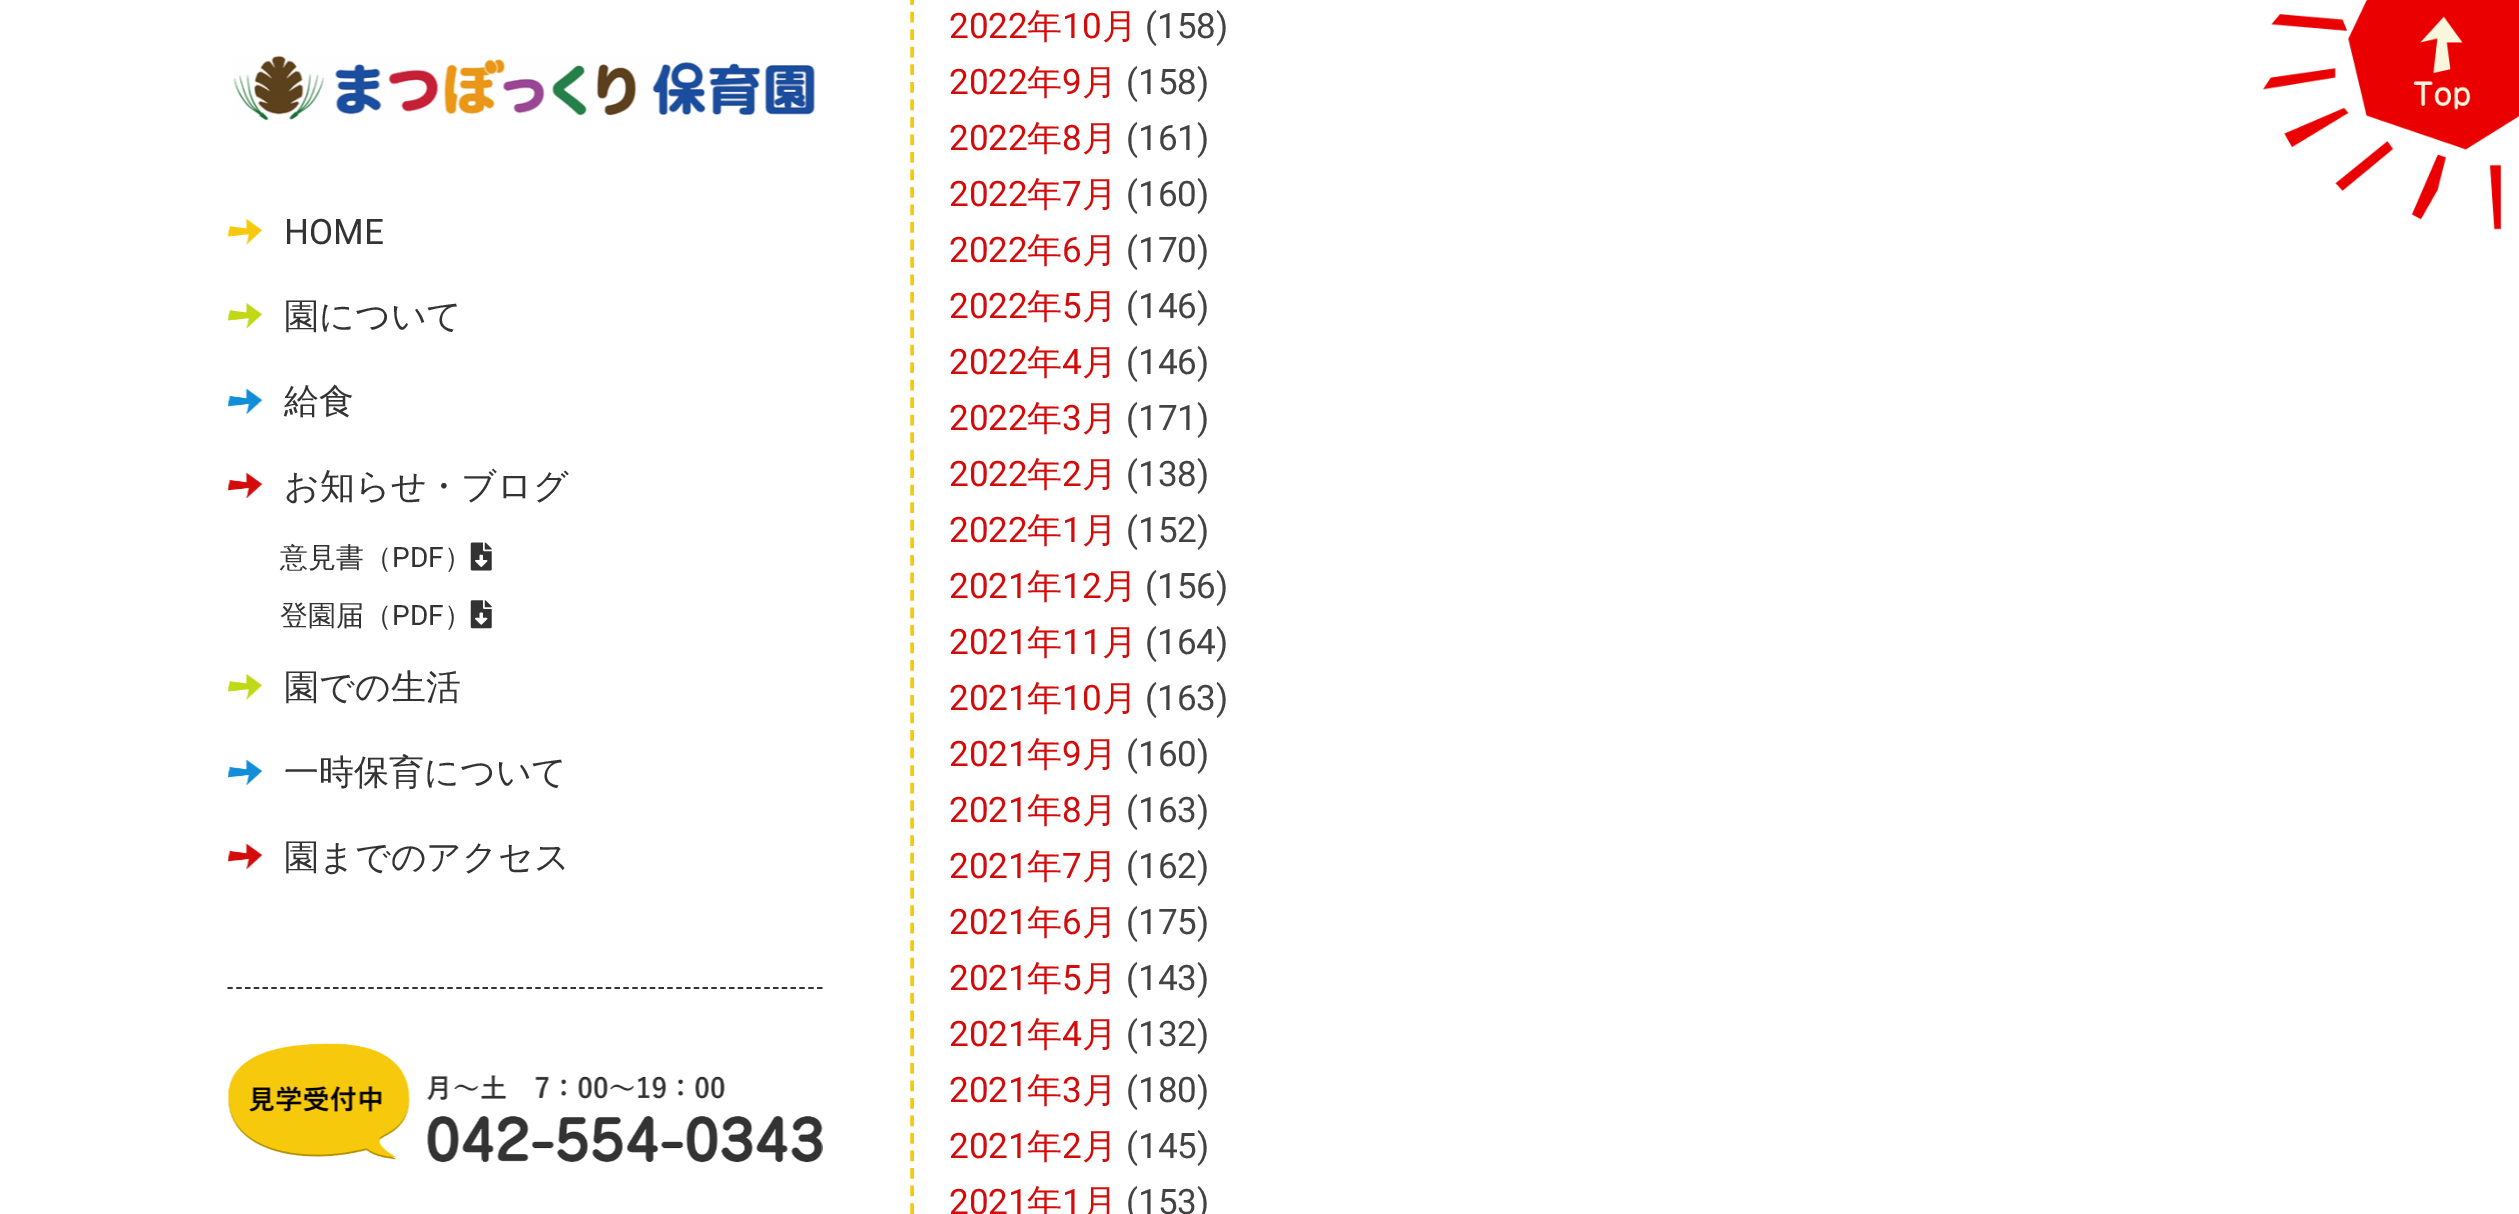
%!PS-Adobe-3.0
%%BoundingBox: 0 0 2519 1214
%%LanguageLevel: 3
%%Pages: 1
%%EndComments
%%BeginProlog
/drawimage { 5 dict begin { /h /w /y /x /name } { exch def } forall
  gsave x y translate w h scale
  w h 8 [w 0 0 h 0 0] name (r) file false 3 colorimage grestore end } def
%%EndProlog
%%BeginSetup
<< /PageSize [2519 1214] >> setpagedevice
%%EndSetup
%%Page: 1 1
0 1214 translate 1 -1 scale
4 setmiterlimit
1 setgray
0 0 2519 1214 rectfill
(images/1.raw) 233 55 582 66 drawimage
(images/2.raw) 228 218 35 27 drawimage
(images/3.raw) 228 302 35 27 drawimage
(images/4.raw) 228 388 35 26 drawimage
(images/5.raw) 228 472 35 26 drawimage
(images/6.raw) 470 542 22 29 drawimage
(images/7.raw) 470 600 22 29 drawimage
(images/8.raw) 228 673 35 27 drawimage
(images/4.raw) 228 759 35 26 drawimage
(images/5.raw) 228 843 35 26 drawimage
0.2 setgray
1.8 setlinewidth
[5.25 3.55] 0 setdash
newpath 227.5 988 moveto 822.5 988 lineto stroke
(images/9.raw) 228 1043 595 120 drawimage
0.969 0.788 0.051 setrgbcolor
3.5 setlinewidth
[10.5 7.02] 0 setdash
newpath 912 -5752 moveto 912 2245 lineto stroke
(images/10.raw) 2262 0 257 230 drawimage
/Roboto-Regular [35 0 0 -35 0 0] selectfont
0.2 setgray
284 244 moveto (HOME) show
/WenQuanYiZenHei-Medium [35 0 0 -35 0 0] selectfont
284 328 moveto (園について) show
284 413 moveto (給食) show
284 498 moveto (お知らせ・ブログ) show
/WenQuanYiZenHei-Medium [28 0 0 -28 0 0] selectfont
280 567 moveto (意見書（) show
/Roboto-Regular [28 0 0 -28 0 0] selectfont
392 567 moveto (PDF) show
/WenQuanYiZenHei-Medium [28 0 0 -28 0 0] selectfont
444 567 moveto (）) show
280 625 moveto (登園届（) show
/Roboto-Regular [28 0 0 -28 0 0] selectfont
392 625 moveto (PDF) show
/WenQuanYiZenHei-Medium [28 0 0 -28 0 0] selectfont
444 625 moveto (）) show
/WenQuanYiZenHei-Medium [35 0 0 -35 0 0] selectfont
284 699 moveto (園での生活) show
284 784 moveto (一時保育について) show
284 869 moveto (園までのアクセス) show
/Roboto-Regular [35 0 0 -35 0 0] selectfont
0.827 0.043 0.043 setrgbcolor
949 38 moveto (2022) show
/WenQuanYiZenHei-Medium [35 0 0 -35 0 0] selectfont
1027 38 moveto (年) show
/Roboto-Regular [35 0 0 -35 0 0] selectfont
1062 38 moveto (10) show
/WenQuanYiZenHei-Medium [35 0 0 -35 0 0] selectfont
1102 38 moveto (月) show
/Roboto-Regular [35 0 0 -35 0 0] selectfont
0.263 setgray
1145 38 moveto (\(158\)) show
0.827 0.043 0.043 setrgbcolor
949 94 moveto (2022) show
/WenQuanYiZenHei-Medium [35 0 0 -35 0 0] selectfont
1027 94 moveto (年) show
/Roboto-Regular [35 0 0 -35 0 0] selectfont
1062 94 moveto (9) show
/WenQuanYiZenHei-Medium [35 0 0 -35 0 0] selectfont
1082 94 moveto (月) show
/Roboto-Regular [35 0 0 -35 0 0] selectfont
0.263 setgray
1126 94 moveto (\(158\)) show
0.827 0.043 0.043 setrgbcolor
949 150 moveto (2022) show
/WenQuanYiZenHei-Medium [35 0 0 -35 0 0] selectfont
1027 150 moveto (年) show
/Roboto-Regular [35 0 0 -35 0 0] selectfont
1062 150 moveto (8) show
/WenQuanYiZenHei-Medium [35 0 0 -35 0 0] selectfont
1082 150 moveto (月) show
/Roboto-Regular [35 0 0 -35 0 0] selectfont
0.263 setgray
1126 150 moveto (\(161\)) show
0.827 0.043 0.043 setrgbcolor
949 206 moveto (2022) show
/WenQuanYiZenHei-Medium [35 0 0 -35 0 0] selectfont
1027 206 moveto (年) show
/Roboto-Regular [35 0 0 -35 0 0] selectfont
1062 206 moveto (7) show
/WenQuanYiZenHei-Medium [35 0 0 -35 0 0] selectfont
1082 206 moveto (月) show
/Roboto-Regular [35 0 0 -35 0 0] selectfont
0.263 setgray
1126 206 moveto (\(160\)) show
0.827 0.043 0.043 setrgbcolor
949 262 moveto (2022) show
/WenQuanYiZenHei-Medium [35 0 0 -35 0 0] selectfont
1027 262 moveto (年) show
/Roboto-Regular [35 0 0 -35 0 0] selectfont
1062 262 moveto (6) show
/WenQuanYiZenHei-Medium [35 0 0 -35 0 0] selectfont
1082 262 moveto (月) show
/Roboto-Regular [35 0 0 -35 0 0] selectfont
0.263 setgray
1126 262 moveto (\(170\)) show
0.827 0.043 0.043 setrgbcolor
949 318 moveto (2022) show
/WenQuanYiZenHei-Medium [35 0 0 -35 0 0] selectfont
1027 318 moveto (年) show
/Roboto-Regular [35 0 0 -35 0 0] selectfont
1062 318 moveto (5) show
/WenQuanYiZenHei-Medium [35 0 0 -35 0 0] selectfont
1082 318 moveto (月) show
/Roboto-Regular [35 0 0 -35 0 0] selectfont
0.263 setgray
1126 318 moveto (\(146\)) show
0.827 0.043 0.043 setrgbcolor
949 374 moveto (2022) show
/WenQuanYiZenHei-Medium [35 0 0 -35 0 0] selectfont
1027 374 moveto (年) show
/Roboto-Regular [35 0 0 -35 0 0] selectfont
1062 374 moveto (4) show
/WenQuanYiZenHei-Medium [35 0 0 -35 0 0] selectfont
1082 374 moveto (月) show
/Roboto-Regular [35 0 0 -35 0 0] selectfont
0.263 setgray
1126 374 moveto (\(146\)) show
0.827 0.043 0.043 setrgbcolor
949 430 moveto (2022) show
/WenQuanYiZenHei-Medium [35 0 0 -35 0 0] selectfont
1027 430 moveto (年) show
/Roboto-Regular [35 0 0 -35 0 0] selectfont
1062 430 moveto (3) show
/WenQuanYiZenHei-Medium [35 0 0 -35 0 0] selectfont
1082 430 moveto (月) show
/Roboto-Regular [35 0 0 -35 0 0] selectfont
0.263 setgray
1126 430 moveto (\(171\)) show
0.827 0.043 0.043 setrgbcolor
949 486 moveto (2022) show
/WenQuanYiZenHei-Medium [35 0 0 -35 0 0] selectfont
1027 486 moveto (年) show
/Roboto-Regular [35 0 0 -35 0 0] selectfont
1062 486 moveto (2) show
/WenQuanYiZenHei-Medium [35 0 0 -35 0 0] selectfont
1082 486 moveto (月) show
/Roboto-Regular [35 0 0 -35 0 0] selectfont
0.263 setgray
1126 486 moveto (\(138\)) show
0.827 0.043 0.043 setrgbcolor
949 542 moveto (2022) show
/WenQuanYiZenHei-Medium [35 0 0 -35 0 0] selectfont
1027 542 moveto (年) show
/Roboto-Regular [35 0 0 -35 0 0] selectfont
1062 542 moveto (1) show
/WenQuanYiZenHei-Medium [35 0 0 -35 0 0] selectfont
1082 542 moveto (月) show
/Roboto-Regular [35 0 0 -35 0 0] selectfont
0.263 setgray
1126 542 moveto (\(152\)) show
0.827 0.043 0.043 setrgbcolor
949 598 moveto (2021) show
/WenQuanYiZenHei-Medium [35 0 0 -35 0 0] selectfont
1027 598 moveto (年) show
/Roboto-Regular [35 0 0 -35 0 0] selectfont
1062 598 moveto (12) show
/WenQuanYiZenHei-Medium [35 0 0 -35 0 0] selectfont
1102 598 moveto (月) show
/Roboto-Regular [35 0 0 -35 0 0] selectfont
0.263 setgray
1145 598 moveto (\(156\)) show
0.827 0.043 0.043 setrgbcolor
949 654 moveto (2021) show
/WenQuanYiZenHei-Medium [35 0 0 -35 0 0] selectfont
1027 654 moveto (年) show
/Roboto-Regular [35 0 0 -35 0 0] selectfont
1062 654 moveto (11) show
/WenQuanYiZenHei-Medium [35 0 0 -35 0 0] selectfont
1102 654 moveto (月) show
/Roboto-Regular [35 0 0 -35 0 0] selectfont
0.263 setgray
1145 654 moveto (\(164\)) show
0.827 0.043 0.043 setrgbcolor
949 710 moveto (2021) show
/WenQuanYiZenHei-Medium [35 0 0 -35 0 0] selectfont
1027 710 moveto (年) show
/Roboto-Regular [35 0 0 -35 0 0] selectfont
1062 710 moveto (10) show
/WenQuanYiZenHei-Medium [35 0 0 -35 0 0] selectfont
1102 710 moveto (月) show
/Roboto-Regular [35 0 0 -35 0 0] selectfont
0.263 setgray
1145 710 moveto (\(163\)) show
0.827 0.043 0.043 setrgbcolor
949 766 moveto (2021) show
/WenQuanYiZenHei-Medium [35 0 0 -35 0 0] selectfont
1027 766 moveto (年) show
/Roboto-Regular [35 0 0 -35 0 0] selectfont
1062 766 moveto (9) show
/WenQuanYiZenHei-Medium [35 0 0 -35 0 0] selectfont
1082 766 moveto (月) show
/Roboto-Regular [35 0 0 -35 0 0] selectfont
0.263 setgray
1126 766 moveto (\(160\)) show
0.827 0.043 0.043 setrgbcolor
949 822 moveto (2021) show
/WenQuanYiZenHei-Medium [35 0 0 -35 0 0] selectfont
1027 822 moveto (年) show
/Roboto-Regular [35 0 0 -35 0 0] selectfont
1062 822 moveto (8) show
/WenQuanYiZenHei-Medium [35 0 0 -35 0 0] selectfont
1082 822 moveto (月) show
/Roboto-Regular [35 0 0 -35 0 0] selectfont
0.263 setgray
1126 822 moveto (\(163\)) show
0.827 0.043 0.043 setrgbcolor
949 878 moveto (2021) show
/WenQuanYiZenHei-Medium [35 0 0 -35 0 0] selectfont
1027 878 moveto (年) show
/Roboto-Regular [35 0 0 -35 0 0] selectfont
1062 878 moveto (7) show
/WenQuanYiZenHei-Medium [35 0 0 -35 0 0] selectfont
1082 878 moveto (月) show
/Roboto-Regular [35 0 0 -35 0 0] selectfont
0.263 setgray
1126 878 moveto (\(162\)) show
0.827 0.043 0.043 setrgbcolor
949 934 moveto (2021) show
/WenQuanYiZenHei-Medium [35 0 0 -35 0 0] selectfont
1027 934 moveto (年) show
/Roboto-Regular [35 0 0 -35 0 0] selectfont
1062 934 moveto (6) show
/WenQuanYiZenHei-Medium [35 0 0 -35 0 0] selectfont
1082 934 moveto (月) show
/Roboto-Regular [35 0 0 -35 0 0] selectfont
0.263 setgray
1126 934 moveto (\(175\)) show
0.827 0.043 0.043 setrgbcolor
949 990 moveto (2021) show
/WenQuanYiZenHei-Medium [35 0 0 -35 0 0] selectfont
1027 990 moveto (年) show
/Roboto-Regular [35 0 0 -35 0 0] selectfont
1062 990 moveto (5) show
/WenQuanYiZenHei-Medium [35 0 0 -35 0 0] selectfont
1082 990 moveto (月) show
/Roboto-Regular [35 0 0 -35 0 0] selectfont
0.263 setgray
1126 990 moveto (\(143\)) show
0.827 0.043 0.043 setrgbcolor
949 1046 moveto (2021) show
/WenQuanYiZenHei-Medium [35 0 0 -35 0 0] selectfont
1027 1046 moveto (年) show
/Roboto-Regular [35 0 0 -35 0 0] selectfont
1062 1046 moveto (4) show
/WenQuanYiZenHei-Medium [35 0 0 -35 0 0] selectfont
1082 1046 moveto (月) show
/Roboto-Regular [35 0 0 -35 0 0] selectfont
0.263 setgray
1126 1046 moveto (\(132\)) show
0.827 0.043 0.043 setrgbcolor
949 1102 moveto (2021) show
/WenQuanYiZenHei-Medium [35 0 0 -35 0 0] selectfont
1027 1102 moveto (年) show
/Roboto-Regular [35 0 0 -35 0 0] selectfont
1062 1102 moveto (3) show
/WenQuanYiZenHei-Medium [35 0 0 -35 0 0] selectfont
1082 1102 moveto (月) show
/Roboto-Regular [35 0 0 -35 0 0] selectfont
0.263 setgray
1126 1102 moveto (\(180\)) show
0.827 0.043 0.043 setrgbcolor
949 1158 moveto (2021) show
/WenQuanYiZenHei-Medium [35 0 0 -35 0 0] selectfont
1027 1158 moveto (年) show
/Roboto-Regular [35 0 0 -35 0 0] selectfont
1062 1158 moveto (2) show
/WenQuanYiZenHei-Medium [35 0 0 -35 0 0] selectfont
1082 1158 moveto (月) show
/Roboto-Regular [35 0 0 -35 0 0] selectfont
0.263 setgray
1126 1158 moveto (\(145\)) show
0.827 0.043 0.043 setrgbcolor
949 1214 moveto (2021) show
/WenQuanYiZenHei-Medium [35 0 0 -35 0 0] selectfont
1027 1214 moveto (年) show
/Roboto-Regular [35 0 0 -35 0 0] selectfont
1062 1214 moveto (1) show
/WenQuanYiZenHei-Medium [35 0 0 -35 0 0] selectfont
1082 1214 moveto (月) show
/Roboto-Regular [35 0 0 -35 0 0] selectfont
0.263 setgray
1126 1214 moveto (\(153\)) show
showpage
%%EOF
